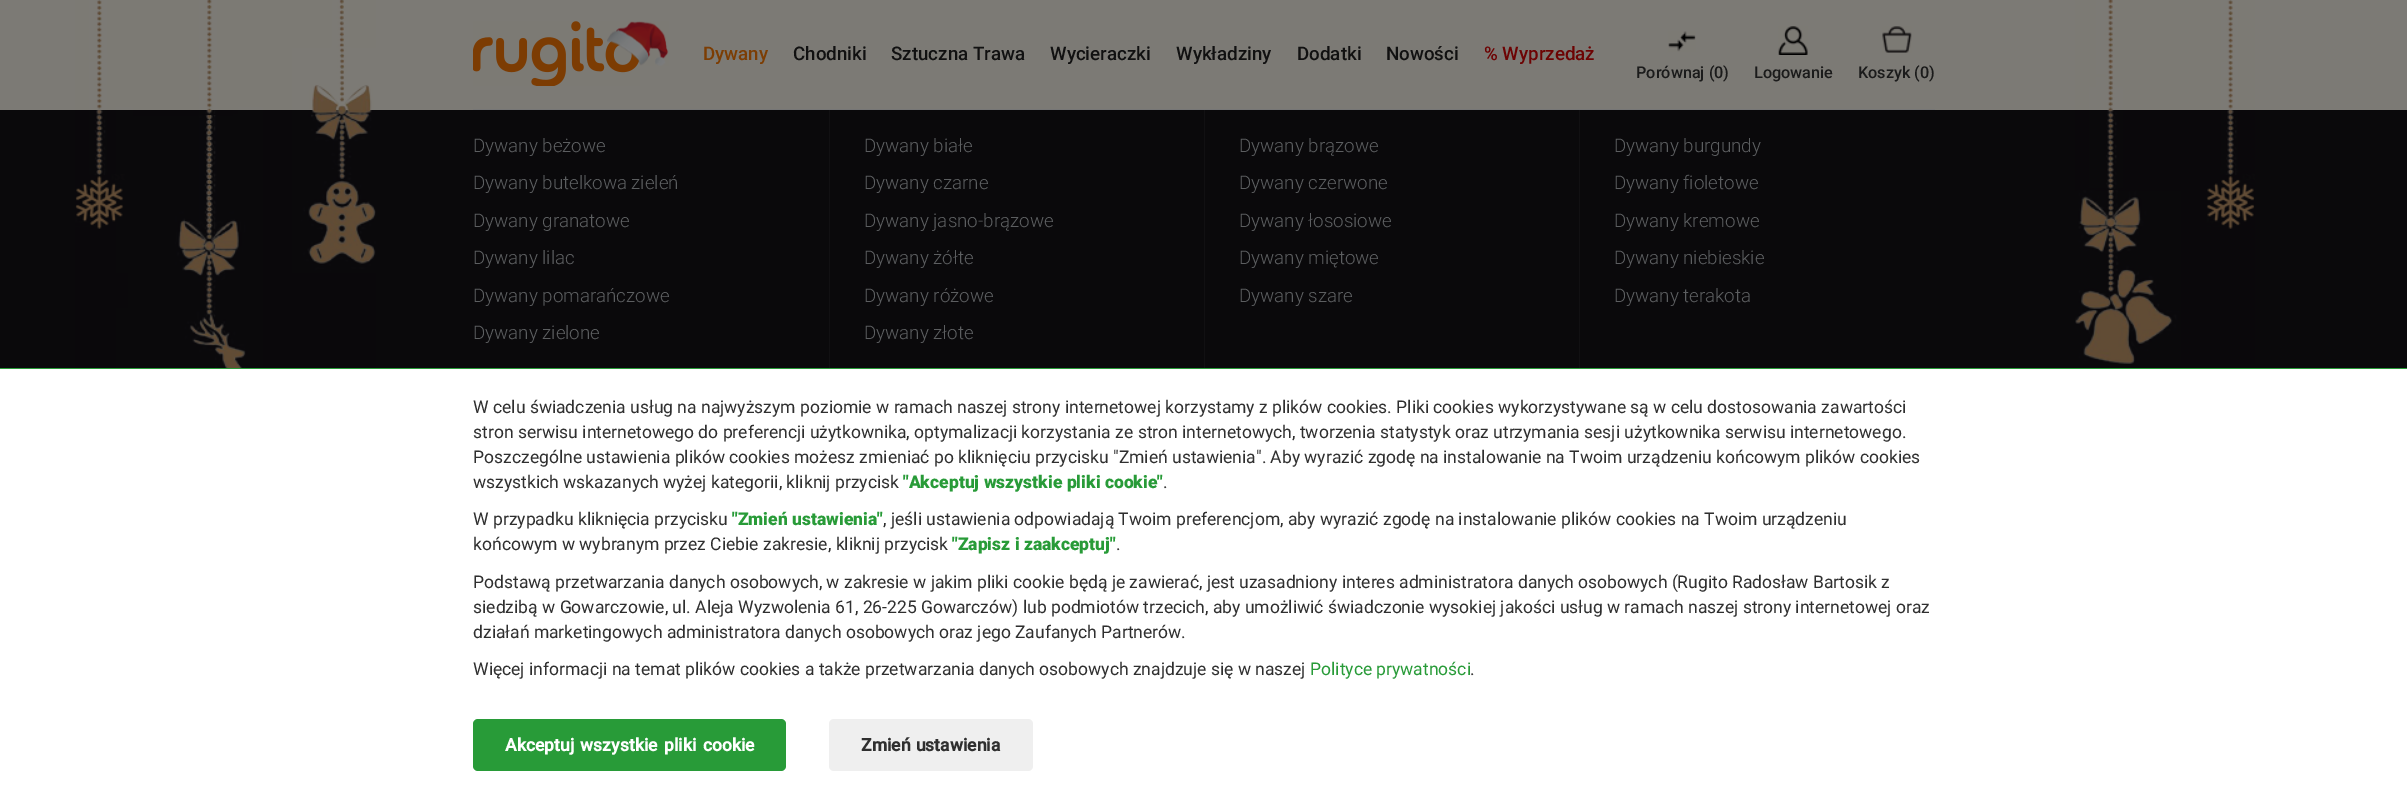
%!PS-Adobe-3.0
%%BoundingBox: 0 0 2407 808
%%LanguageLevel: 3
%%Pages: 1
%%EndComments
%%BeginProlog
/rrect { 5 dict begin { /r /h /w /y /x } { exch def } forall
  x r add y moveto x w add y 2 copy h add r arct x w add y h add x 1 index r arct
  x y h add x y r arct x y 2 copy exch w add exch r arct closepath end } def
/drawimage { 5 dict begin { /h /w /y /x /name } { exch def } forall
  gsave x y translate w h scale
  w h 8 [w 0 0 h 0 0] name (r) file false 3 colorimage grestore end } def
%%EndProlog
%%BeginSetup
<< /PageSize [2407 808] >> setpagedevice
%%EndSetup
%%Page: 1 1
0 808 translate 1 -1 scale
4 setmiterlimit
0.039 0.035 0.043 setrgbcolor
0 0 2407 808 rectfill
0.486 0.478 0.459 setrgbcolor
0 0 2407 110 rectfill
(images/1.raw) 75 0 301 368 drawimage
0.463 setgray
473 109 1462 1 rectfill
(images/2.raw) 473 21 167 65 drawimage
(images/3.raw) 607 21 62 45 drawimage
(images/4.raw) 1668 31 28 21 drawimage
(images/5.raw) 1778 26 30 29 drawimage
(images/6.raw) 1882 26 30 27 drawimage
(images/7.raw) 2075 0 180 364 drawimage
0.067 0.063 0.071 setrgbcolor
829 110 1 258 rectfill
1204 110 1 258 rectfill
1579 110 1 258 rectfill
1 setgray
0 369 2407 439 rectfill
0.157 0.608 0.22 setrgbcolor
0 368 2407 1 rectfill
473 719 313 52 5 rrect fill
0.937 setgray
829 719 204 52 5 rrect fill
/Roboto-Medium [18.75 0 0 -18.75 0 0] selectfont
0.486 0.239 0.012 setrgbcolor
703 60 moveto (Dywany) show
0.067 setgray
793 60 moveto (Chodniki) show
891 60 moveto (Sztuczna Trawa) show
1050 60 moveto (Wycieraczki) show
1176 60 moveto (Wykładziny) show
1297 60 moveto (Dodatki) show
1386 60 moveto (Nowości) show
0.427 0.012 0.012 setrgbcolor
1484 60 moveto (% Wyprzedaż) show
/Roboto-Medium [16.25 0 0 -16.25 0 0] selectfont
0.106 setgray
1636 78 moveto (Porównaj \(0\)) show
1754 78 moveto (Logowanie) show
1858 78 moveto (Koszyk \(0\)) show
/Roboto-Light [18.75 0 0 -18.75 0 0] selectfont
0.361 0.369 0.376 setrgbcolor
473 152 moveto (Dywany beżowe) show
473 189 moveto (Dywany butelkowa zieleń) show
473 227 moveto (Dywany granatowe) show
473 264 moveto (Dywany lilac) show
473 302 moveto (Dywany pomarańczowe) show
473 339 moveto (Dywany zielone) show
864 152 moveto (Dywany białe) show
864 189 moveto (Dywany czarne) show
864 227 moveto (Dywany jasno-brązowe) show
864 264 moveto (Dywany żółte) show
864 302 moveto (Dywany różowe) show
864 339 moveto (Dywany złote) show
1239 152 moveto (Dywany brązowe) show
1239 189 moveto (Dywany czerwone) show
1239 227 moveto (Dywany łososiowe) show
1239 264 moveto (Dywany miętowe) show
1239 302 moveto (Dywany szare) show
1614 152 moveto (Dywany burgundy) show
1614 189 moveto (Dywany fioletowe) show
1614 227 moveto (Dywany kremowe) show
1614 264 moveto (Dywany niebieskie) show
1614 302 moveto (Dywany terakota) show
/Roboto-Regular [17.5 0 0 -17.5 0 0] selectfont
0.184 setgray
473 413 moveto (W celu świadczenia usług na najwyższym poziomie w ramach naszej strony internetowej korzystamy z plików cookies. Pliki cookies wykorzystywane są w celu dostosowania zawartości) show
473 438 moveto (stron serwisu internetowego do preferencji użytkownika, optymalizacji korzystania ze stron internetowych, tworzenia statystyk oraz utrzymania sesji użytkownika serwisu internetowego.) show
473 463 moveto (Poszczególne ustawienia plików cookies możesz zmieniać po kliknięciu przycisku "Zmień ustawienia". Aby wyrazić zgodę na instalowanie na Twoim urządzeniu końcowym plików cookies) show
473 488 moveto (wszystkich wskazanych wyżej kategorii, kliknij przycisk) show
/Roboto-Black [17.5 0 0 -17.5 0 0] selectfont
0.157 0.608 0.22 setrgbcolor
903 488 moveto ("Akceptuj wszystkie pliki cookie") show
/Roboto-Regular [17.5 0 0 -17.5 0 0] selectfont
0.184 setgray
1163 488 moveto (.) show
473 525 moveto (W przypadku kliknięcia przycisku) show
/Roboto-Black [17.5 0 0 -17.5 0 0] selectfont
0.157 0.608 0.22 setrgbcolor
732 525 moveto ("Zmień ustawienia") show
/Roboto-Regular [17.5 0 0 -17.5 0 0] selectfont
0.184 setgray
883 525 moveto (, jeśli ustawienia odpowiadają Twoim preferencjom, aby wyrazić zgodę na instalowanie plików cookies na Twoim urządzeniu) show
473 550 moveto (końcowym w wybranym przez Ciebie zakresie, kliknij przycisk) show
/Roboto-Black [17.5 0 0 -17.5 0 0] selectfont
0.157 0.608 0.22 setrgbcolor
952 550 moveto ("Zapisz i zaakceptuj") show
/Roboto-Regular [17.5 0 0 -17.5 0 0] selectfont
0.184 setgray
1116 550 moveto (.) show
473 588 moveto (Podstawą przetwarzania danych osobowych, w zakresie w jakim pliki cookie będą je zawierać, jest uzasadniony interes administratora danych osobowych \(Rugito Radosław Bartosik z) show
473 613 moveto (siedzibą w Gowarczowie, ul. Aleja Wyzwolenia 61, 26-225 Gowarczów\) lub podmiotów trzecich, aby umożliwić świadczonie wysokiej jakości usług w ramach naszej strony internetowej oraz) show
473 638 moveto (działań marketingowych administratora danych osobowych oraz jego Zaufanych Partnerów.) show
473 675 moveto (Więcej informacji na temat plików cookies a także przetwarzania danych osobowych znajdzuje się w naszej) show
0.157 0.608 0.22 setrgbcolor
1310 675 moveto (Polityce prywatności) show
0.184 setgray
1470 675 moveto (.) show
/Roboto-Bold [17.5 0 0 -17.5 0 0] selectfont
1 setgray
505 751 moveto 2 0 32 (Akceptuj wszystkie pliki cookie) widthshow
0.184 setgray
861 751 moveto 1 0 32 (Zmień ustawienia) widthshow
showpage
%%EOF
